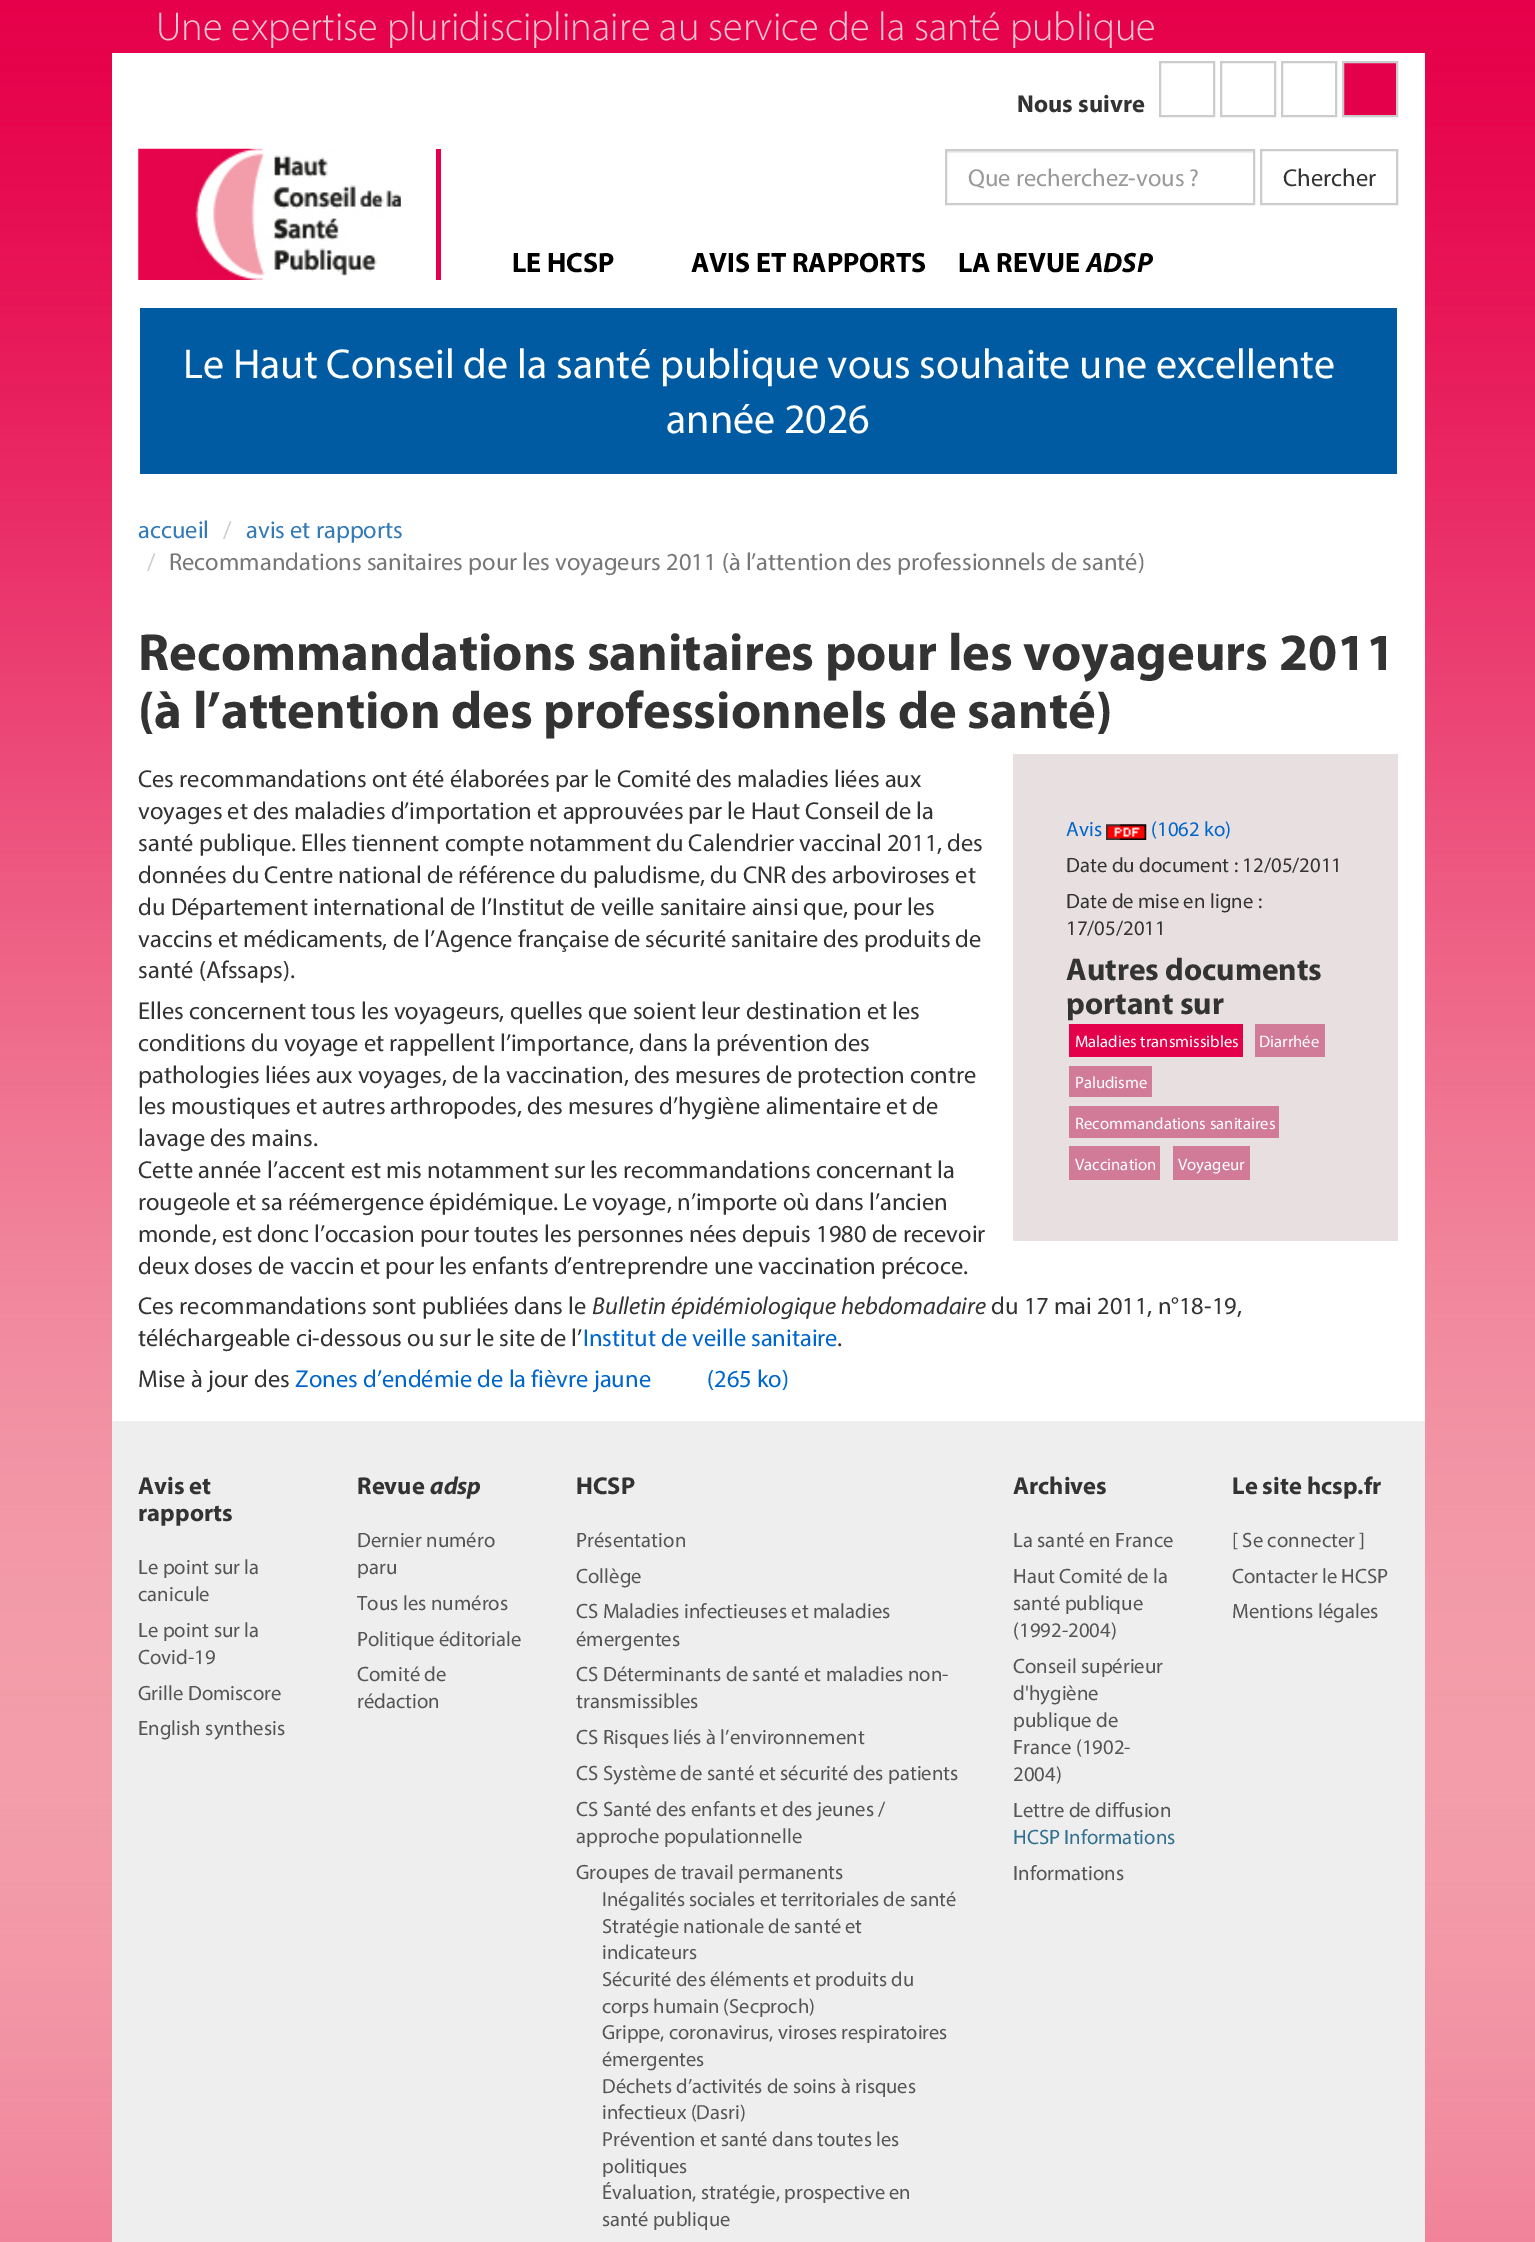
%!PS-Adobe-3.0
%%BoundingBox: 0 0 1535 2242
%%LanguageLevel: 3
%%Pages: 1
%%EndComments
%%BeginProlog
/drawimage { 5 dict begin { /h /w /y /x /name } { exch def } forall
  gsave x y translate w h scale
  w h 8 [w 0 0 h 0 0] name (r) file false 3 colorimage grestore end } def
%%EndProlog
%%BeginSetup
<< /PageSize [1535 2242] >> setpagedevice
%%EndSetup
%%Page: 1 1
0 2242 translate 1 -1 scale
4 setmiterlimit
1 setgray
0 0 1535 2242 rectfill
(images/1.raw) 0 0 1535 2242 drawimage
112 53 1313 1368 rectfill
0.8 setgray
2 setlinewidth
1160 62 54 54 rectstroke
1221 62 54 54 rectstroke
1282 62 54 54 rectstroke
0.898 0 0.294 setrgbcolor
newpath 1343 62 moveto 1397 62 lineto 1397 116 lineto 1343 116 lineto closepath gsave fill grestore
0.8 setgray
stroke
0.898 0 0.294 setrgbcolor
436 149 5 131 rectfill
(images/2.raw) 138 148 263 132 drawimage
0.925 setgray
947 151 306 2 rectfill
0.8 setgray
946 150 308 54 rectstroke
1261 150 136 54 rectstroke
0 0.357 0.635 setrgbcolor
140 308 1257 166 rectfill
0.91 0.878 0.878 setrgbcolor
1013 754 385 487 rectfill
(images/3.raw) 1106 824 41 16 drawimage
0.898 0 0.294 setrgbcolor
1069 1024 174 33 rectfill
0.82 0.482 0.6 setrgbcolor
1255 1024 70 33 rectfill
1069 1066 83 31 rectfill
1069 1106 210 32 rectfill
1069 1146 91 34 rectfill
1173 1146 77 34 rectfill
0.933 setgray
112 1421 1313 821 rectfill
/Myriad-Light [40.4 0 0 -40.4 0 0] selectfont
0.925 0.773 0.824 setrgbcolor
156 40 moveto (Une expertise pluridisciplinaire au service de la santé publique) show
/Myriad-Bold [24.5 0 0 -24.5 0 0] selectfont
0.2 setgray
1017 112 moveto (Nous suivre) show
/Myriad-Regular [24.5 0 0 -24.5 0 0] selectfont
0.6 setgray
968 186 moveto (Que recherchez-vous ?) show
0.2 setgray
1283 186 moveto (Chercher) show
/Myriad-Bold [28 0 0 -28 0 0] selectfont
0 setgray
512 272 moveto (LE HCSP) show
691 272 moveto (AVIS ET RAPPORTS) show
958 272 moveto (LA REVUE) show
/Myriad-BoldItalic [28 0 0 -28 0 0] selectfont
1086 272 moveto (ADSP) show
/Myriad-Regular [42 0 0 -42 0 0] selectfont
1 setgray
183 378 moveto (Le Haut Conseil de la santé publique vous souhaite une excellente) show
666 433 moveto (année 2026) show
/Myriad-Regular [24.5 0 0 -24.5 0 0] selectfont
0.2 0.478 0.718 setrgbcolor
138 538 moveto (accueil) show
0.8 setgray
223 538 moveto (/) show
0.2 0.478 0.718 setrgbcolor
246 538 moveto (avis et rapports) show
0.8 setgray
147 570 moveto (/) show
0.467 setgray
169 570 moveto (Recommandations sanitaires pour les voyageurs 2011 \(à l’attention des professionnels de santé\)) show
/Myriad-Bold [52.5 0 0 -52.5 0 0] selectfont
0.2 setgray
138 670 moveto (Recommandations sanitaires pour les voyageurs 2011) show
138 728 moveto (\(à l’attention des professionnels de santé\)) show
/Myriad-Regular [24.5 0 0 -24.5 0 0] selectfont
138 787 moveto (Ces recommandations ont été élaborées par le Comité des maladies liées aux) show
138 819 moveto (voyages et des maladies d’importation et approuvées par le Haut Conseil de la) show
138 851 moveto (santé publique. Elles tiennent compte notamment du Calendrier vaccinal 2011, des) show
138 883 moveto (données du Centre national de référence du paludisme, du CNR des arboviroses et) show
138 915 moveto (du Département international de l’Institut de veille sanitaire ainsi que, pour les) show
138 947 moveto (vaccins et médicaments, de l’Agence française de sécurité sanitaire des produits de) show
138 978 moveto (santé \(Afssaps\).) show
138 1019 moveto (Elles concernent tous les voyageurs, quelles que soient leur destination et les) show
138 1051 moveto (conditions du voyage et rappellent l’importance, dans la prévention des) show
138 1083 moveto (pathologies liées aux voyages, de la vaccination, des mesures de protection contre) show
138 1114 moveto (les moustiques et autres arthropodes, des mesures d’hygiène alimentaire et de) show
138 1146 moveto (lavage des mains.) show
138 1178 moveto (Cette année l’accent est mis notamment sur les recommandations concernant la) show
138 1210 moveto (rougeole et sa réémergence épidémique. Le voyage, n’importe où dans l’ancien) show
138 1242 moveto (monde, est donc l’occasion pour toutes les personnes nées depuis 1980 de recevoir) show
138 1274 moveto (deux doses de vaccin et pour les enfants d’entreprendre une vaccination précoce.) show
138 1314 moveto (Ces recommandations sont publiées dans le) show
/Myriad-Italic [24.5 0 0 -24.5 0 0] selectfont
592 1314 moveto (Bulletin épidémiologique hebdomadaire) show
/Myriad-Regular [24.5 0 0 -24.5 0 0] selectfont
991 1314 moveto (du 17 mai 2011, n°18-19,) show
138 1346 moveto (téléchargeable ci-dessous ou sur le site de l’) show
0 0.4 0.8 setrgbcolor
583 1346 moveto (Institut de veille sanitaire) show
0.2 setgray
837 1346 moveto (.) show
138 1387 moveto (Mise à jour des) show
0 0.4 0.8 setrgbcolor
295 1387 moveto (Zones d’endémie de la fièvre jaune) show
707 1387 moveto (\(265 ko\)) show
/Myriad-Regular [20.8 0 0 -20.8 0 0] selectfont
1066 836 moveto (Avis) show
1151 836 moveto (\(1062 ko\)) show
0.2 setgray
1066 872 moveto (Date du document : 12/05/2011) show
1066 908 moveto (Date de mise en ligne :) show
1066 935 moveto (17/05/2011) show
/Myriad-Bold [31.5 0 0 -31.5 0 0] selectfont
1066 980 moveto (Autres documents) show
1066 1014 moveto (portant sur) show
/Myriad-Regular [16.7 0 0 -16.7 0 0] selectfont
1 setgray
1075 1047 moveto (Maladies transmissibles) show
1259 1047 moveto (Diarrhée) show
1075 1088 moveto (Paludisme) show
1075 1129 moveto (Recommandations sanitaires) show
1075 1170 moveto (Vaccination) show
1178 1170 moveto (Voyageur) show
/Myriad-Bold [24.5 0 0 -24.5 0 0] selectfont
0.2 setgray
138 1494 moveto (Avis et) show
138 1521 moveto (rapports) show
/Myriad-Regular [20.8 0 0 -20.8 0 0] selectfont
0.333 setgray
138 1574 moveto (Le point sur la) show
138 1601 moveto (canicule) show
138 1637 moveto (Le point sur la) show
138 1664 moveto (Covid-19) show
138 1700 moveto (Grille Domiscore) show
138 1735 moveto (English synthesis) show
/Myriad-Bold [24.5 0 0 -24.5 0 0] selectfont
0.2 setgray
357 1494 moveto (Revue) show
/Myriad-BoldItalic [24.5 0 0 -24.5 0 0] selectfont
430 1494 moveto (adsp) show
/Myriad-Regular [20.8 0 0 -20.8 0 0] selectfont
0.333 setgray
357 1547 moveto (Dernier numéro) show
357 1574 moveto (paru) show
357 1610 moveto (Tous les numéros) show
357 1646 moveto (Politique éditoriale) show
357 1681 moveto (Comité de) show
357 1708 moveto (rédaction) show
/Myriad-Bold [24.5 0 0 -24.5 0 0] selectfont
0.2 setgray
576 1494 moveto (HCSP) show
/Myriad-Regular [20.8 0 0 -20.8 0 0] selectfont
0.333 setgray
576 1547 moveto (Présentation) show
576 1583 moveto (Collège) show
576 1618 moveto (CS Maladies infectieuses et maladies) show
576 1646 moveto (émergentes) show
576 1681 moveto (CS Déterminants de santé et maladies non-) show
576 1708 moveto (transmissibles) show
576 1744 moveto (CS Risques liés à l’environnement) show
576 1780 moveto (CS Système de santé et sécurité des patients) show
576 1816 moveto (CS Santé des enfants et des jeunes /) show
576 1843 moveto (approche populationnelle) show
576 1879 moveto (Groupes de travail permanents) show
/Myriad-Regular [20.5 0 0 -20.5 0 0] selectfont
602 1906 moveto (Inégalités sociales et territoriales de santé) show
602 1933 moveto (Stratégie nationale de santé et) show
602 1959 moveto (indicateurs) show
602 1986 moveto (Sécurité des éléments et produits du) show
602 2013 moveto (corps humain \(Secproch\)) show
602 2039 moveto (Grippe, coronavirus, viroses respiratoires) show
602 2066 moveto (émergentes) show
602 2093 moveto (Déchets d’activités de soins à risques) show
602 2119 moveto (infectieux \(Dasri\)) show
602 2146 moveto (Prévention et santé dans toutes les) show
602 2173 moveto (politiques) show
602 2199 moveto (Évaluation, stratégie, prospective en) show
602 2226 moveto (santé publique) show
/Myriad-Bold [24.5 0 0 -24.5 0 0] selectfont
0.2 setgray
1013 1494 moveto (Archives) show
/Myriad-Regular [20.8 0 0 -20.8 0 0] selectfont
0.333 setgray
1013 1547 moveto (La santé en France) show
1013 1583 moveto (Haut Comité de la) show
1013 1610 moveto (santé publique) show
1013 1637 moveto (\(1992-2004\)) show
1013 1673 moveto (Conseil supérieur) show
1013 1700 moveto (d'hygiène) show
1013 1727 moveto (publique de) show
1013 1754 moveto (France \(1902-) show
1013 1781 moveto (2004\)) show
1013 1817 moveto (Lettre de diffusion) show
0.192 0.439 0.561 setrgbcolor
1013 1844 moveto (HCSP Informations) show
0.333 setgray
1013 1880 moveto (Informations) show
/Myriad-Bold [24.5 0 0 -24.5 0 0] selectfont
0.2 setgray
1232 1494 moveto (Le site hcsp.fr) show
/Myriad-Regular [20.8 0 0 -20.8 0 0] selectfont
0.333 setgray
1232 1547 moveto ([ Se connecter ]) show
1232 1583 moveto (Contacter le HCSP) show
1232 1618 moveto (Mentions légales) show
showpage
%%EOF
